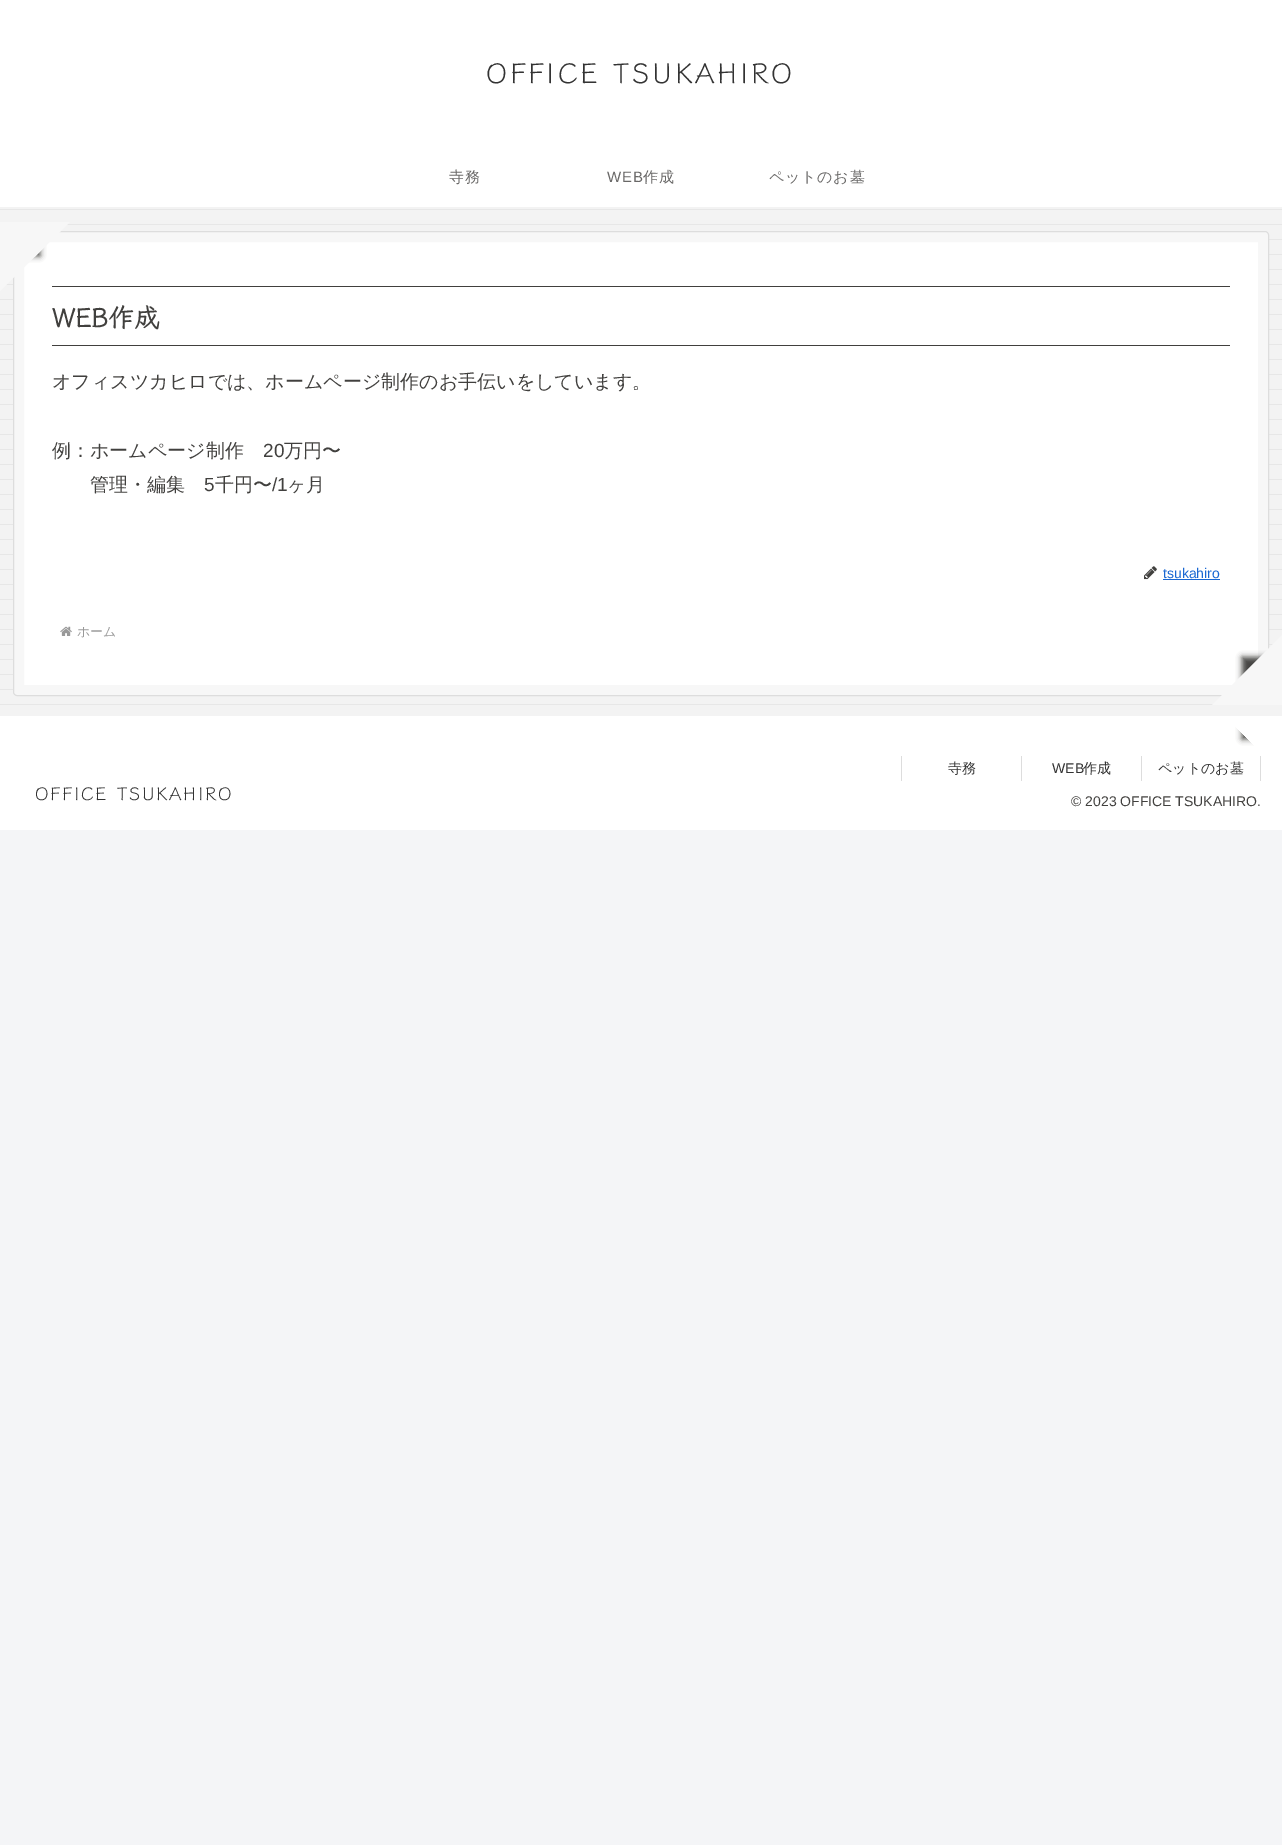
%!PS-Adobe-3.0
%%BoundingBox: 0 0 1282 1845
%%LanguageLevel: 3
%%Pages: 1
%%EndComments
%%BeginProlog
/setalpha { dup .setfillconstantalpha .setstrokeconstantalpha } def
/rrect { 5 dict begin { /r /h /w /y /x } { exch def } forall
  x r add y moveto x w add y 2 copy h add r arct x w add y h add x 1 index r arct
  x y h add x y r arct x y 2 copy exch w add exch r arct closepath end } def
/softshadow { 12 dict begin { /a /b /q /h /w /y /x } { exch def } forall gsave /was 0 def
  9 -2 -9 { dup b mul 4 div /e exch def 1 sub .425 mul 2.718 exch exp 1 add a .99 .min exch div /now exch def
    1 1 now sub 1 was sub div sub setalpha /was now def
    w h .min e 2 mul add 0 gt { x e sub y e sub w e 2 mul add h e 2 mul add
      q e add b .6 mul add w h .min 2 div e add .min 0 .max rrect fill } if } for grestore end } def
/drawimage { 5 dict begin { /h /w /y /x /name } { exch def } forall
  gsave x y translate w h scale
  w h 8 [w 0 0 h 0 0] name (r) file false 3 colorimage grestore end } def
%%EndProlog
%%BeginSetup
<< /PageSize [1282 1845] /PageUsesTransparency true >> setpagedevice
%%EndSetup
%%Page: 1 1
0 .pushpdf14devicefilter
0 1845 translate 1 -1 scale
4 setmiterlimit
0.957 0.961 0.969 setrgbcolor
0 0 1282 1845 rectfill
0.953 setgray
0 207 1282 509 rectfill
(images/1.raw) 0 209 1282 496 drawimage
1 setgray
13 231 1256 465 4 rrect fill
0.969 setgray
10 setlinewidth
newpath 19 237 moveto 1263 237 lineto 1263 690 lineto 19 690 lineto closepath stroke
0.867 setgray
1 setlinewidth
13.5 231.5 1255 464 3.5 rrect stroke
gsave
newpath 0 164 moveto 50 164 lineto 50 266 lineto 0 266 lineto closepath 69.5 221.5 moveto -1 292.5 lineto -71.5 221.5 lineto -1 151 lineto closepath eoclip newpath
0.255 0.251 0.243 setrgbcolor
-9 174 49 82 0 3 1 softshadow
grestore
1 setgray
0 0 1282 207 rectfill
0.255 0.251 0.243 setrgbcolor
52 286 1178 1 rectfill
0.969 setgray
newpath 70 222 moveto -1 292 lineto -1 222 lineto closepath fill
0.255 0.251 0.243 setrgbcolor
52 345 1178 1 rectfill
(images/2.raw) 1144 566 13 14 drawimage
0.098 0.404 0.824 setrgbcolor
1163 579 57 1 rectfill
(images/3.raw) 60 626 12 10 drawimage
1 setgray
0 716 1282 114 rectfill
gsave
newpath 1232 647 moveto 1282 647 lineto 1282 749 lineto 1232 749 lineto closepath 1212.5 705 moveto 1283 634 lineto 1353.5 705 lineto 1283 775.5 lineto closepath eoclip newpath
0.255 0.251 0.243 setrgbcolor
1242 657 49 82 0 3 1 softshadow
grestore
0.969 setgray
newpath 1212 705 moveto 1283 634 lineto 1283 705 lineto closepath fill
0.867 setgray
901 756 1 25 rectfill
1021 756 1 25 rectfill
1260 756 1 25 rectfill
1141 756 1 25 rectfill
/KleeOne-Regular [28 0 0 -28 0 0] selectfont
0.2 setgray
486 83 moveto 2.75 0 (OFFICE TSUKAHIRO) ashow
/WenQuanYiZenHei-Medium [15 0 0 -15 0 0] selectfont
0.412 0.408 0.404 setrgbcolor
449 182 moveto 0.75 0 (寺務) ashow
/LiberationSans-Regular [15 0 0 -15 0 0] selectfont
607 182 moveto 0.75 0 (WEB) ashow
/WenQuanYiZenHei-Medium [15 0 0 -15 0 0] selectfont
643 182 moveto 0.75 0 (作成) ashow
769 182 moveto 0.75 0 (ペットのお墓) ashow
/KleeOne-Bold [26 0 0 -26 0 0] selectfont
0.255 0.251 0.243 setrgbcolor
52 327 moveto (WEB作成) show
/WenQuanYiZenHei-Medium [19 0 0 -19 0 0] selectfont
52 388 moveto (オフィスツカヒロでは、ホームページ制作のお手伝いをしています。) show
52 457 moveto (例：ホームページ制作) show
/LiberationSans-Regular [19 0 0 -19 0 0] selectfont
263 457 moveto (20) show
/WenQuanYiZenHei-Medium [19 0 0 -19 0 0] selectfont
284 457 moveto (万円〜) show
90 491 moveto (管理・編集) show
/LiberationSans-Regular [19 0 0 -19 0 0] selectfont
204 491 moveto (5) show
/WenQuanYiZenHei-Medium [19 0 0 -19 0 0] selectfont
215 491 moveto (千円〜) show
/LiberationSans-Regular [19 0 0 -19 0 0] selectfont
272 491 moveto (/1) show
/WenQuanYiZenHei-Medium [19 0 0 -19 0 0] selectfont
287 491 moveto (ヶ月) show
/LiberationSans-Regular [14 0 0 -14 0 0] selectfont
0.098 0.404 0.824 setrgbcolor
1163 578 moveto (tsukahiro) show
/WenQuanYiZenHei-Medium [13 0 0 -13 0 0] selectfont
0.6 setgray
77 636 moveto (ホーム) show
/KleeOne-Regular [18 0 0 -18 0 0] selectfont
0.2 setgray
35 800 moveto 1.75 0 (OFFICE TSUKAHIRO) ashow
/WenQuanYiZenHei-Medium [14 0 0 -14 0 0] selectfont
948 773 moveto (寺務) show
/LiberationSans-Regular [14 0 0 -14 0 0] selectfont
1052 773 moveto (WEB) show
/WenQuanYiZenHei-Medium [14 0 0 -14 0 0] selectfont
1083 773 moveto (作成) show
1158 773 moveto (ペットのお墓) show
/LiberationSans-Regular [14 0 0 -14 0 0] selectfont
0.255 0.251 0.243 setrgbcolor
1071 806 moveto (© 2023 OFFICE TSUKAHIRO.) show
.poppdf14devicefilter showpage
%%EOF
